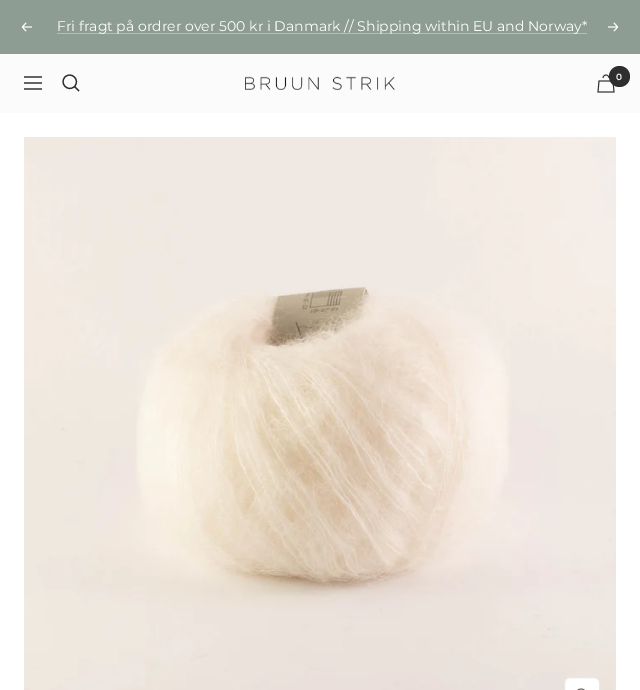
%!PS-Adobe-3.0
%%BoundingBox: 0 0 640 690
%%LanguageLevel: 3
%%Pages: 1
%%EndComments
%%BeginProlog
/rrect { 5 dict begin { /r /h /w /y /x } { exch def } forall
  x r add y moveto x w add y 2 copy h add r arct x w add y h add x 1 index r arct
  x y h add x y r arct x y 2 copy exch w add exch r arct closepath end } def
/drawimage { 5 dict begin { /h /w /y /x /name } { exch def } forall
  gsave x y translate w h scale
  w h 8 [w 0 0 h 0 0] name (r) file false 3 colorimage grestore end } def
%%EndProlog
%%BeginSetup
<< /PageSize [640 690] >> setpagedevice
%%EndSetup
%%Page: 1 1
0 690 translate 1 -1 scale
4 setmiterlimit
1 setgray
0 0 640 690 rectfill
0.553 0.616 0.58 setrgbcolor
0 0 640 54 rectfill
(images/1.raw) 21 22 11 10 drawimage
0.71 0.749 0.725 setrgbcolor
57 33 530 1 rectfill
(images/2.raw) 608 22 11 10 drawimage
0.984 setgray
0 54 640 59 rectfill
0.18 setgray
1.2 setlinewidth
newpath 24 77 moveto 42 77 lineto 24 89 moveto 42 89 lineto closepath 24 83 moveto 42 83 lineto closepath 74.5 86.5 moveto 80.5 80 71.5 71 65 77 curveto 59 83.5 68 92.5 74.5 86.5 curveto closepath 74.5 86.5 moveto 79 91 lineto stroke
(images/3.raw) 245 76 150 14 drawimage
(images/4.raw) 597 74 18 19 drawimage
newpath 619.5 76.5 10.5 0 360 arc closepath fill
(images/5.raw) 24 137 592 553 drawimage
1 setgray
564.5 677.5 35 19 5.5 rrect gsave fill grestore
0.91 0.91 0.906 setrgbcolor
1 setlinewidth
stroke
(images/6.raw) 577 688 8 2 drawimage
/Montserrat-Regular [14 0 0 -14 0 0] selectfont
1 setgray
57 31 moveto (Fri fragt på ordrer over 500 kr i Danmark // Shipping within EU and Norway*) show
/Montserrat-SemiBold [9 0 0 -9 0 0] selectfont
616 80 moveto (0) show
showpage
%%EOF
